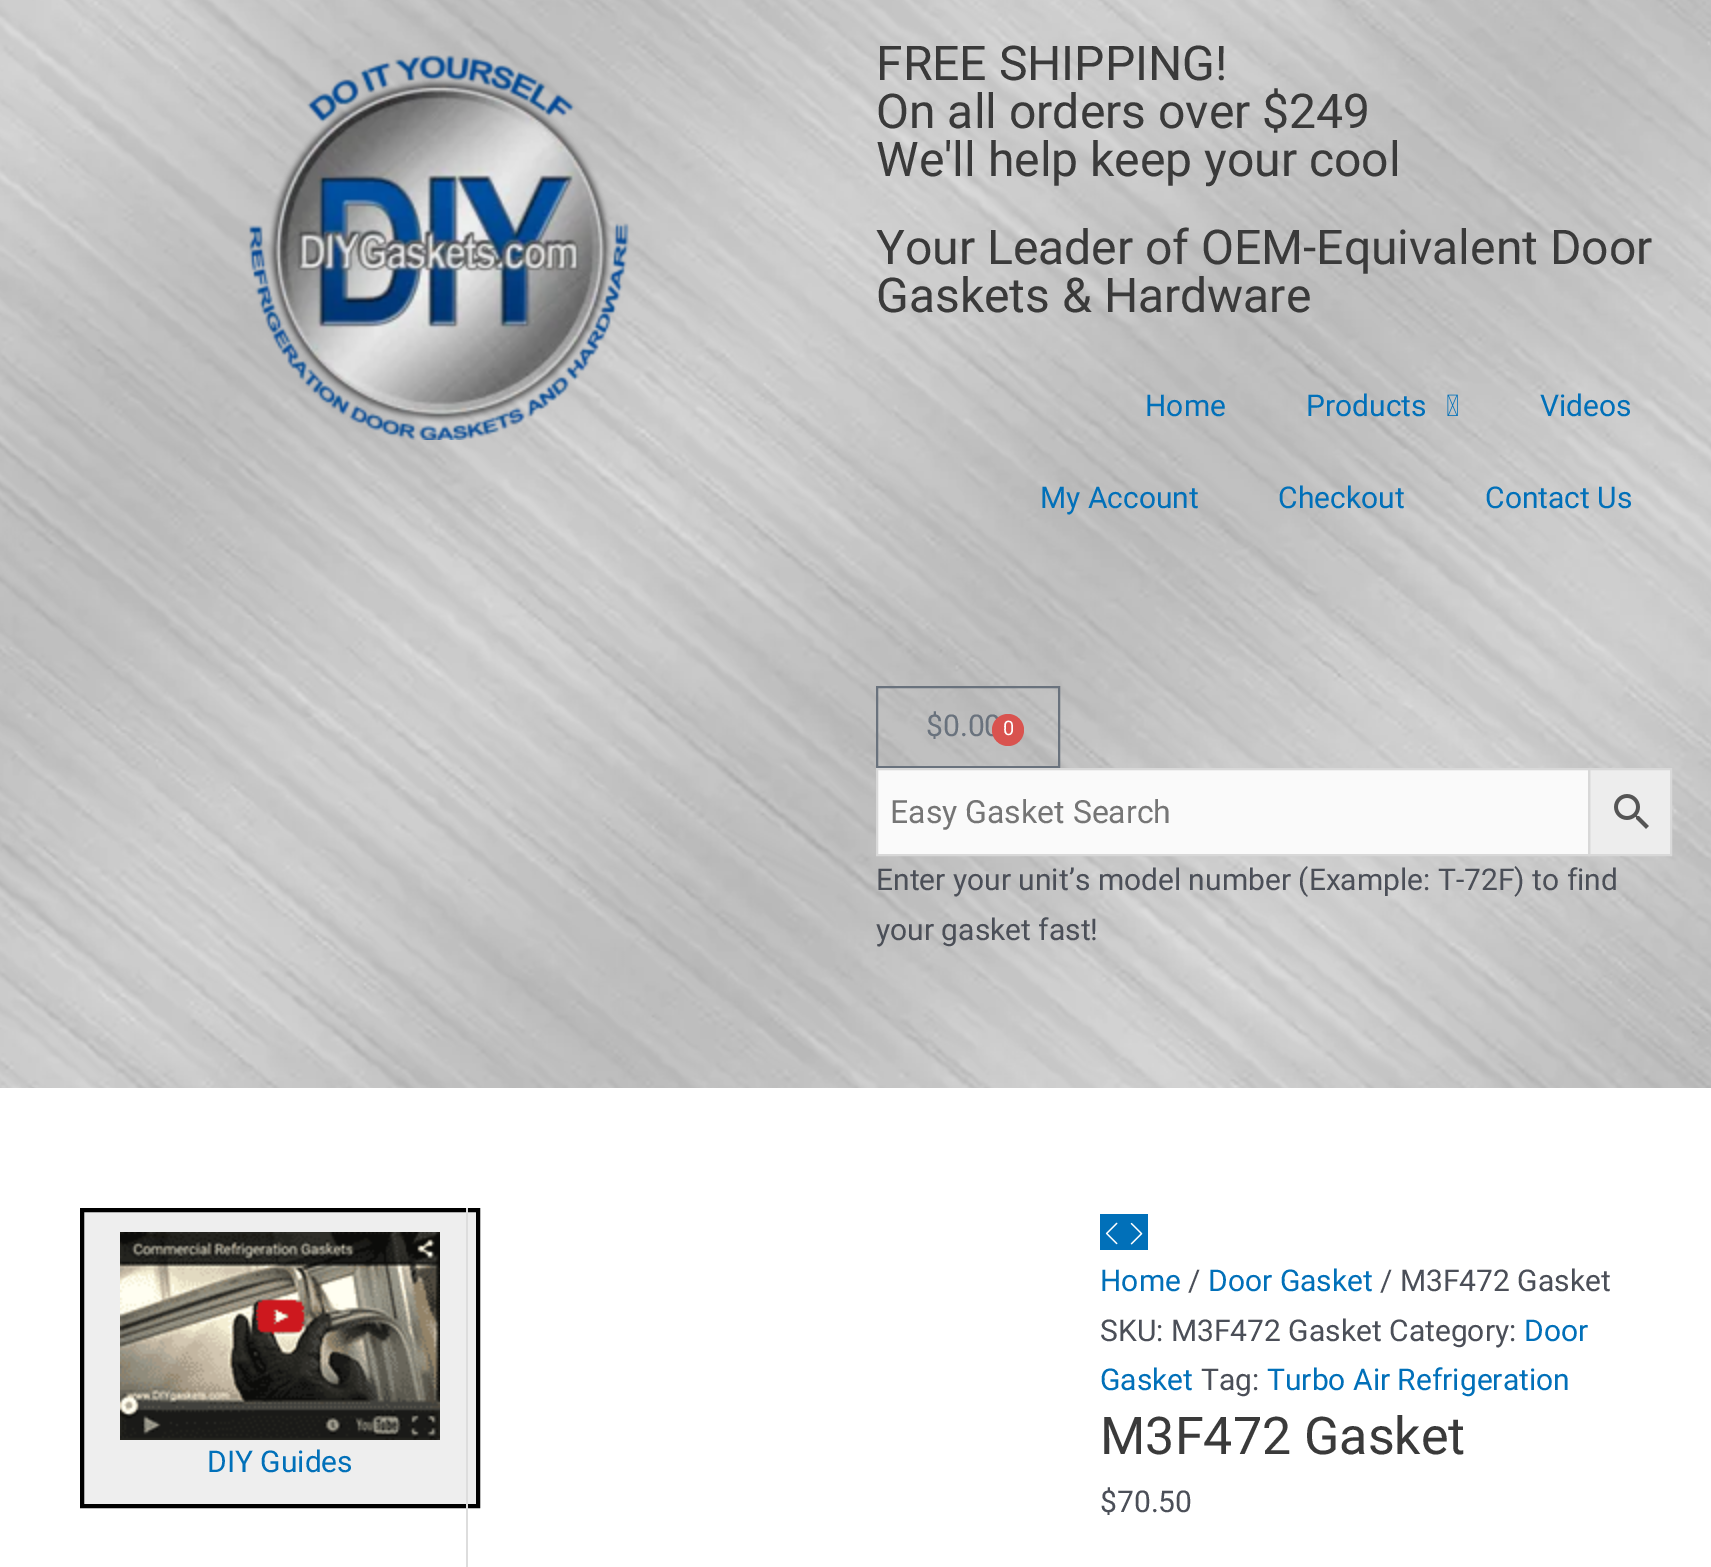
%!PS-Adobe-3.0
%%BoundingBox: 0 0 1711 1567
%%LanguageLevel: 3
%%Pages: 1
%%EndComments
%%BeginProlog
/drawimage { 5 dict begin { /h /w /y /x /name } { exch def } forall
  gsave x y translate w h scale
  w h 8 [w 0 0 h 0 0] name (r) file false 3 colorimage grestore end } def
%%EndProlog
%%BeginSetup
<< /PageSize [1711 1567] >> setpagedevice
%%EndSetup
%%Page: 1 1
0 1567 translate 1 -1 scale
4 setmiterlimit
1 setgray
0 0 1711 1567 rectfill
(images/1.raw) 0 0 1711 1088 drawimage
(images/2.raw) 248 55 381 385 drawimage
(images/3.raw) 1447 394 11 22 drawimage
0.412 0.447 0.49 setrgbcolor
2 setlinewidth
877 687 182 80 rectstroke
0.929 setgray
newpath 1589 769 moveto 1671 769 lineto 1671 855 lineto 1589 855 lineto closepath gsave fill grestore
0.847 setgray
stroke
0.98 setgray
newpath 877 769 moveto 1589 769 lineto 1589 855 lineto 877 855 lineto closepath gsave fill grestore
0.847 setgray
stroke
(images/4.raw) 1614 794 35 35 drawimage
0.933 setgray
newpath 82 1210 moveto 478 1210 lineto 478 1506 lineto 82 1506 lineto closepath gsave fill grestore
0 setgray
4 setlinewidth
stroke
(images/5.raw) 120 1232 320 208 drawimage
0.867 setgray
466 1208 2 359 rectfill
0.004 0.439 0.725 setrgbcolor
1100 1214 48 36 rectfill
(images/6.raw) 1105 1222 13 23 drawimage
(images/7.raw) 1130 1222 13 23 drawimage
/Roboto-Regular [48 0 0 -48 0 0] selectfont
0.227 setgray
876 80 moveto (FREE SHIPPING!) show
876 128 moveto (On all orders over $249) show
876 176 moveto (We'll help keep your cool) show
876 264 moveto (Your Leader of OEM-Equivalent Door) show
876 312 moveto (Gaskets & Hardware) show
/Roboto-Regular [30 0 0 -30 0 0] selectfont
0.004 0.439 0.725 setrgbcolor
1145 416 moveto (Home) show
1306 416 moveto (Products) show
1540 416 moveto (Videos) show
1040 508 moveto (My Account) show
1278 508 moveto (Checkout) show
1485 508 moveto (Contact Us) show
0.412 0.447 0.49 setrgbcolor
926 736 moveto ($0.00) show
0.851 0.325 0.31 setrgbcolor
newpath 1008 730 16 0 360 arc closepath fill
/Roboto-Regular [20 0 0 -20 0 0] selectfont
1 setgray
1003 735 moveto (0) show
/Roboto-Regular [32 0 0 -32 0 0] selectfont
0.459 setgray
890 823 moveto (Easy Gasket Search) show
/Roboto-Regular [30 0 0 -30 0 0] selectfont
0.294 0.31 0.345 setrgbcolor
876 890 moveto (Enter your unit’s model number \(Example: T-72F\) to find) show
876 940 moveto (your gasket fast!) show
0.004 0.439 0.725 setrgbcolor
207 1472 moveto (DIY Guides) show
1100 1291 moveto (Home) show
0.294 0.31 0.345 setrgbcolor
1188 1291 moveto (/) show
0.004 0.439 0.725 setrgbcolor
1208 1291 moveto (Door Gasket) show
0.294 0.31 0.345 setrgbcolor
1380 1291 moveto (/ M3F472 Gasket) show
1100 1341 moveto (SKU: M3F472 Gasket Category:) show
0.004 0.439 0.725 setrgbcolor
1524 1341 moveto (Door) show
1100 1390 moveto (Gasket) show
0.294 0.31 0.345 setrgbcolor
1201 1390 moveto (Tag:) show
0.004 0.439 0.725 setrgbcolor
1267 1390 moveto (Turbo Air Refrigeration) show
/Roboto-Regular [52 0 0 -52 0 0] selectfont
0.227 setgray
1100 1454 moveto (M3F472 Gasket) show
/Roboto-Regular [30 0 0 -30 0 0] selectfont
0.294 0.31 0.345 setrgbcolor
1100 1512 moveto ($70.50) show
showpage
%%EOF
